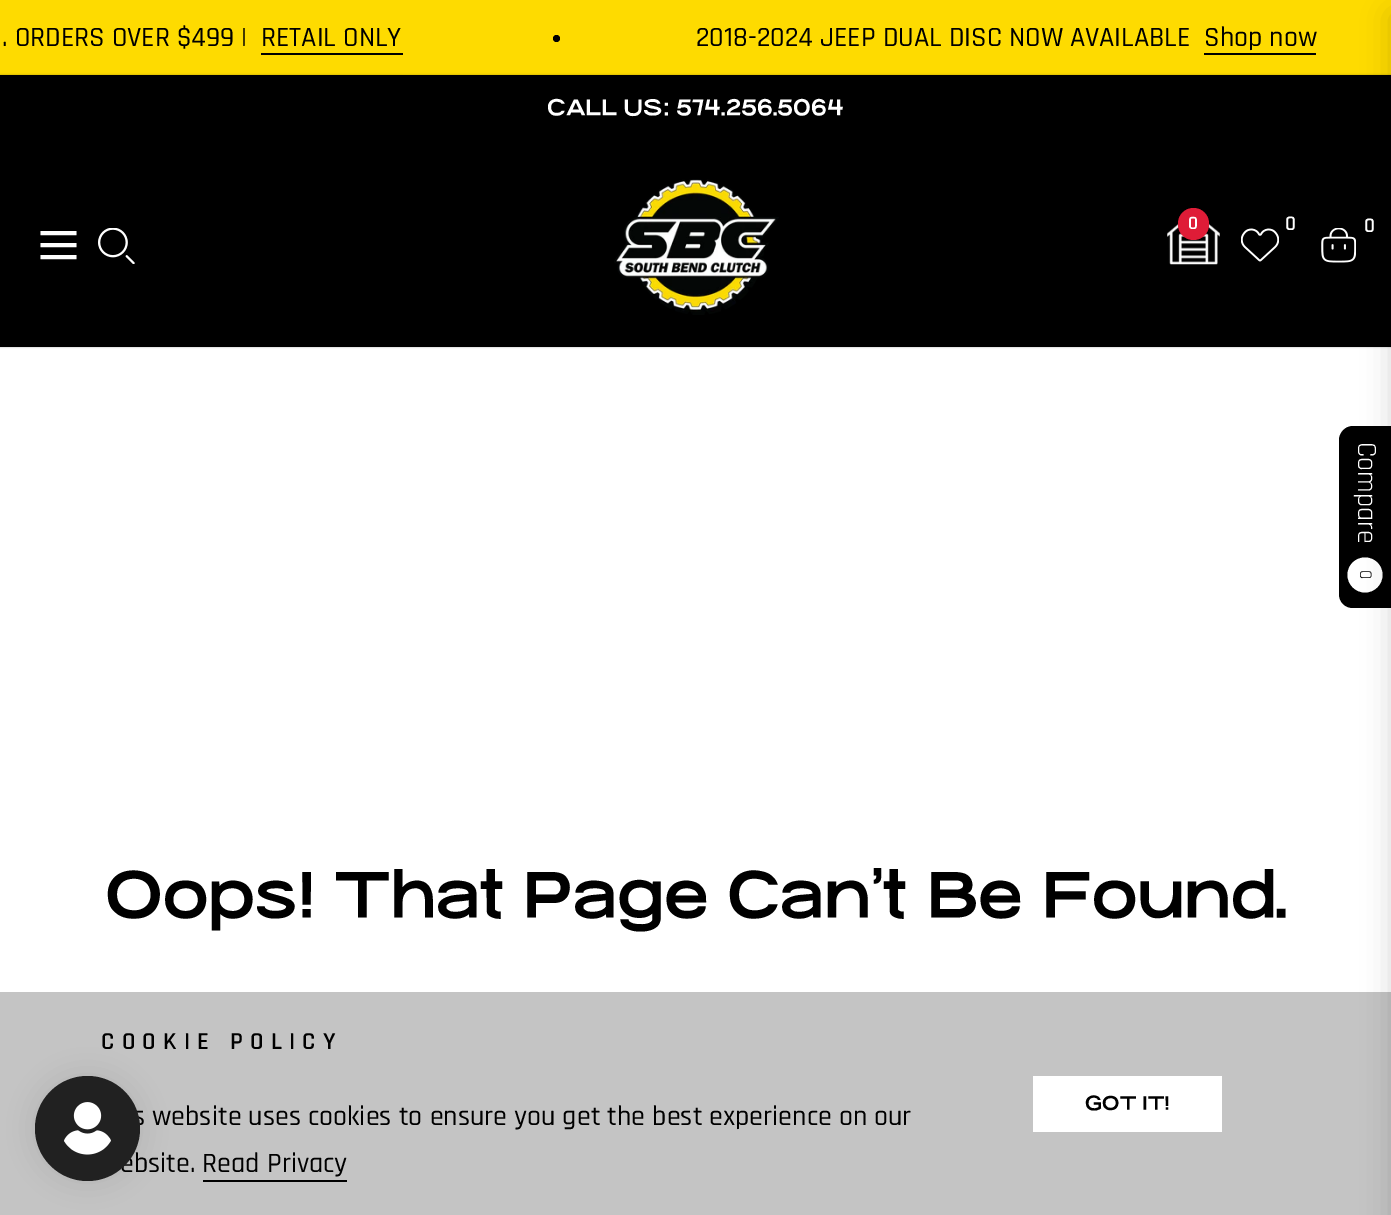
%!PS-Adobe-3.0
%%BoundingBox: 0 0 1391 1215
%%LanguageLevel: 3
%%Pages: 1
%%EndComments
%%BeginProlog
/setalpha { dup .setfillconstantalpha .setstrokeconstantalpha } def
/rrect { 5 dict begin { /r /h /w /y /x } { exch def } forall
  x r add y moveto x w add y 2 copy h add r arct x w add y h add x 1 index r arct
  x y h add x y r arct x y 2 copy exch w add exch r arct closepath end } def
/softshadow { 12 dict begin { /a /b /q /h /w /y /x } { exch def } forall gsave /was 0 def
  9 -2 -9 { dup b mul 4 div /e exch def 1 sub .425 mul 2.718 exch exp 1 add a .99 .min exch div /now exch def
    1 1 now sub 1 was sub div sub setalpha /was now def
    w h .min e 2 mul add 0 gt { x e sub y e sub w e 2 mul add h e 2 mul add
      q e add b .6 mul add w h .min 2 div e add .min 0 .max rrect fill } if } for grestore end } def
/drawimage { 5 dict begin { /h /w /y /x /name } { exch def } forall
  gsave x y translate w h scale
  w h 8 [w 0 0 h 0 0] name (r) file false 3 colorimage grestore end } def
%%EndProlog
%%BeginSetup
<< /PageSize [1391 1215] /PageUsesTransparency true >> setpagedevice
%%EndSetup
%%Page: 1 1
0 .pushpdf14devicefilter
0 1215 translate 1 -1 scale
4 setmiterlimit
1 setgray
0 0 1391 1215 rectfill
0.996 0.859 0 setrgbcolor
0 0 1391 75 rectfill
0 setgray
261 53 142 2 rectfill
newpath 556.5 38.5 3.5 0 360 arc closepath fill
1204 53 112 2 rectfill
0 75 1391 272 0 1 0.3 softshadow
0 75 1391 272 rectfill
(images/1.raw) 614 179 165 136 drawimage
(images/2.raw) 1167 223 53 42 drawimage
0.875 0.11 0.216 setrgbcolor
1178 208 31 32 15.5 rrect fill
(images/3.raw) 1241 228 38 34 drawimage
(images/4.raw) 1321 228 35 35 drawimage
0 setgray
newpath 1391 426 moveto 1391 608 lineto 1353 608 lineto 1345 608 1339 602 1339 594 curveto 1339 440 lineto 1339 433 1345 426 1353 426 curveto closepath fill
1 setgray
newpath 1382.5 575 moveto 1382.5 584.5 1374.5 592.5 1365 592.5 curveto 1355.5 592.5 1347.5 584.5 1347.5 575 curveto 1347.5 565 1355.5 557.5 1365 557.5 curveto 1374.5 557.5 1382.5 565 1382.5 575 curveto closepath fill
0.769 setgray
0 992 1391 223 rectfill
0 setgray
1391 14 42 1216 0 14 0.15 softshadow
1 setgray
4 setlinewidth
newpath 40.5 233 moveto 76.5 233 lineto 40.5 257 moveto 76.5 257 lineto closepath 40.5 245 moveto 76.5 245 lineto closepath stroke
(images/5.raw) 98 228 37 36 drawimage
0 setgray
35 1076 105 105 52.5 13 0.08 softshadow
203 1180 144 2 rectfill
1 setgray
1033 1076 189 56 rectfill
/Rajdhani-Medium [28 0 0 -28 0 0] selectfont
0 setgray
2 46 moveto (. ORDERS OVER $499 |) show
261 46 moveto (RETAIL ONLY) show
696 46 moveto (2018-2024 JEEP DUAL DISC NOW AVAILABLE) show
1204 46 moveto (Shop now) show
/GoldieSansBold-Bold [24.5 0 0 -24.5 0 0] selectfont
1 setgray
547 119 moveto (CALL US: 574.256.5064) show
/Rajdhani-SemiBold [19 0 0 -19 0 0] selectfont
1188 229 moveto (0) show
/Rajdhani-SemiBold [21 0 0 -21 0 0] selectfont
1285 230 moveto (0) show
1364 232 moveto (0) show
/Rajdhani-Regular [28 0 0 -28 0 0] selectfont
gsave 1358 442 translate 90 rotate 0 0 moveto (Compare) show grestore
/Rajdhani-Regular [18 0 0 -18 0 0] selectfont
0 setgray
gsave 1360 570 translate 90 rotate 0 0 moveto (0) show grestore
/GoldieSansBold-Bold [70 0 0 -70 0 0] selectfont
105 928 moveto (Oops! That Page Can’t Be Found.) show
/Rajdhani-SemiBold [24.5 0 0 -24.5 0 0] selectfont
101 1049 moveto 7.3 0 (COOKIE POLICY) ashow
/Rajdhani-Medium [28 0 0 -28 0 0] selectfont
133 1125 moveto (s website uses cookies to ensure you get the best experience on our) show
120 1172 moveto (ebsite. Read Privacy) show
0.129 setgray
newpath 87.5 1128.5 52.5 0 360 arc closepath fill
(images/6.raw) 64 1102 47 53 drawimage
/GoldieSansBold-Bold [21 0 0 -21 0 0] selectfont
0 setgray
1085 1113 moveto (GOT IT!) show
.poppdf14devicefilter showpage
%%EOF
